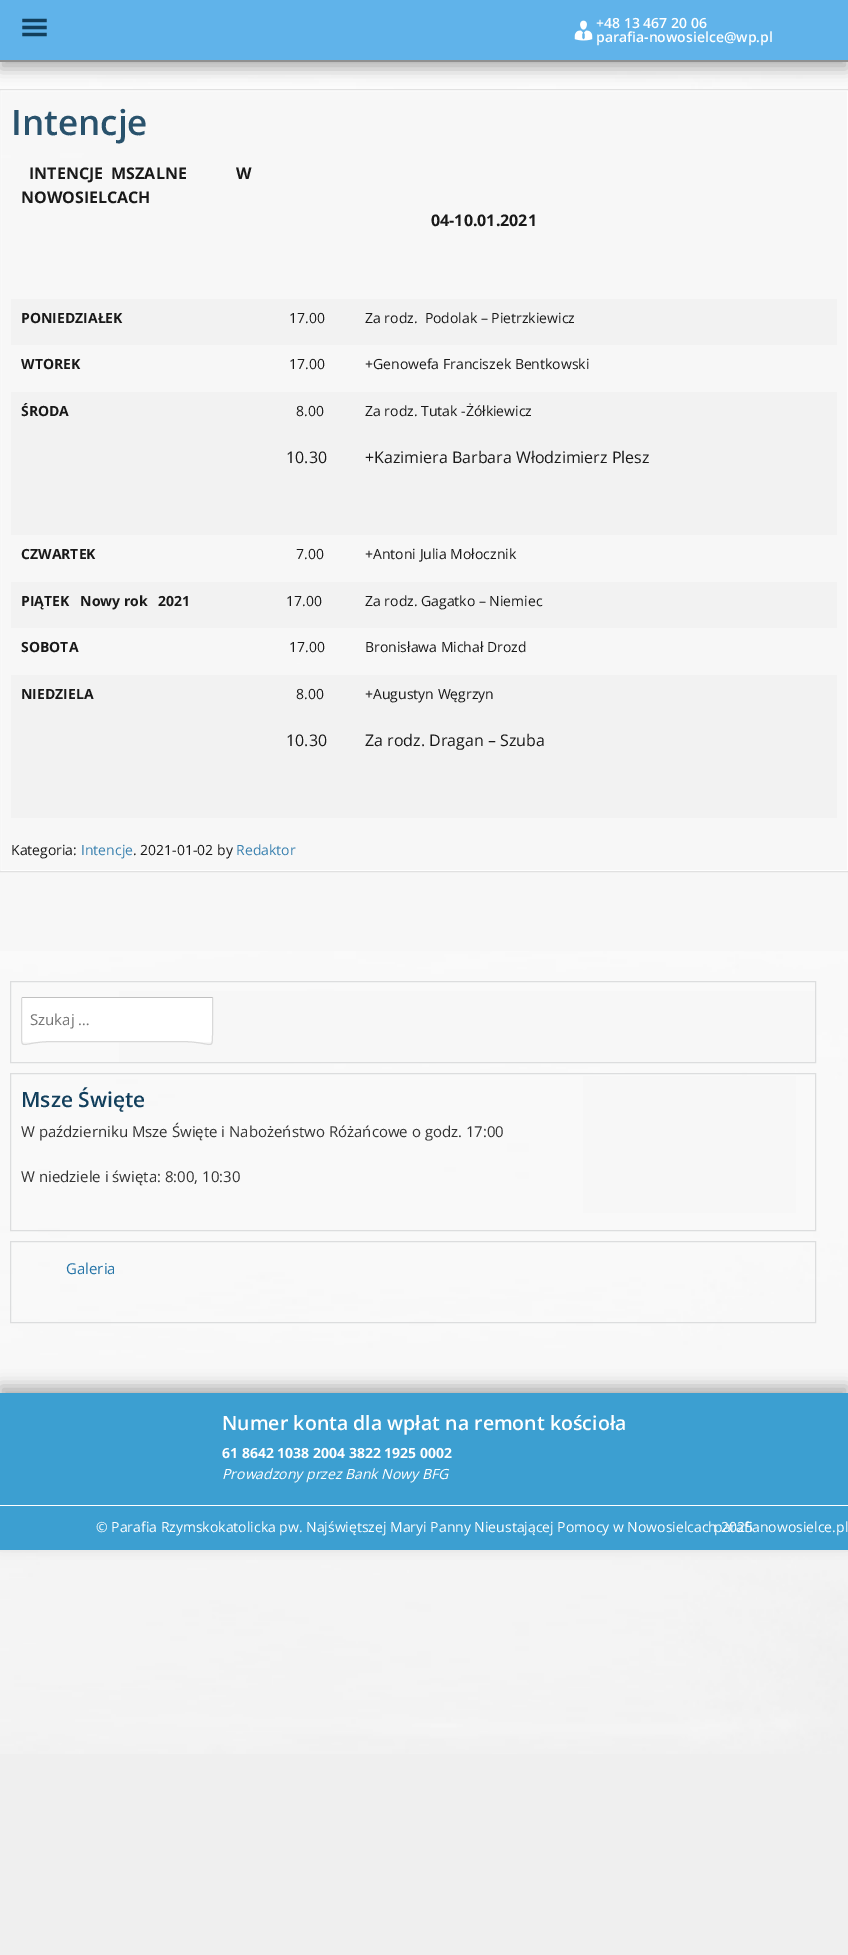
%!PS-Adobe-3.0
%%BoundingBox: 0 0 848 1955
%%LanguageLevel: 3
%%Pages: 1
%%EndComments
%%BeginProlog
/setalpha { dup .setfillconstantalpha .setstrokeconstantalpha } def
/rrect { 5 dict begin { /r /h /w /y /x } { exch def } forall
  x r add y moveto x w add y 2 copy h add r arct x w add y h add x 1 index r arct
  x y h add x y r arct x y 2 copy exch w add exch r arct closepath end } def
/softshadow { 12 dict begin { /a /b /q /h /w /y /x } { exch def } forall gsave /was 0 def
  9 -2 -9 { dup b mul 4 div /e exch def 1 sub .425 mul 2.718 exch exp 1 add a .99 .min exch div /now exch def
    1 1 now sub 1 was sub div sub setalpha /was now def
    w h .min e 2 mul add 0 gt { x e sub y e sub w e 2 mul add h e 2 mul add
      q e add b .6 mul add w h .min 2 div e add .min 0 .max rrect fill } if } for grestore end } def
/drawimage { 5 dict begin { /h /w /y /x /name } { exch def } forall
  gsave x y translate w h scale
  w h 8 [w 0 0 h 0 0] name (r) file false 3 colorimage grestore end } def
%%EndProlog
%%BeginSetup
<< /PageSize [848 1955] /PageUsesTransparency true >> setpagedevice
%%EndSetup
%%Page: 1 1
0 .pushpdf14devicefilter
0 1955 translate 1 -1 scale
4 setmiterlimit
0.937 setgray
0 0 848 1955 rectfill
(images/1.raw) 0 62 848 1692 drawimage
0.9 setalpha
0.969 setgray
0 91 848 860 rectfill
1 setalpha
0.996 setgray
0.5 90.5 847 780 rectstroke
0.949 setgray
11 299 826 46 rectfill
11 392 826 143 rectfill
11 582 826 46 rectfill
11 675 826 143 rectfill
0.9 setalpha
0.871 setgray
-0.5 89.5 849 782 rectstroke
1 setalpha
0.698 setgray
0 7 848 62 0 7.5 1 softshadow
0.376 0.702 0.918 setrgbcolor
0 0 848 60 rectfill
(images/2.raw) 22 18 25 19 drawimage
0.565 setgray
0 60 848 2 rectfill
(images/3.raw) 574 20 19 21 drawimage
0.969 setgray
119 991 696 71 rectfill
0.863 0.867 0.871 setrgbcolor
10.5 981.5 805 81 rectstroke
1 setgray
21 997 192 45 1 rrect fill
0.753 setgray
22 997 191 1 rectfill
0.851 setgray
newpath 212.5 997.5 moveto 212.5 1034 lineto 212.5 1052 213 1041.5 180.5 1041.5 curveto 53.5 1041.5 lineto 21 1041.5 21.5 1052 21.5 1034 curveto 21.5 997.5 lineto stroke
0.969 setgray
583 1076 213 137 rectfill
0.863 0.867 0.871 setrgbcolor
10.5 1073.5 805 157 rectstroke
10.5 1241.5 805 81 rectstroke
0.698 setgray
0 1386 848 157 0 7.5 1 softshadow
0.235 0.624 0.82 setrgbcolor
0 1393 848 157 rectfill
1 setgray
0 1505 848 1 rectfill
/OpenSans-SemiBold [14 0 0 -14 0 0] selectfont
596 28 moveto (+48 13 467 20 06) show
596 42 moveto (parafia-nowosielce@wp.pl) show
/OpenSans-SemiBold [35 0 0 -35 0 0] selectfont
0.161 0.322 0.424 setrgbcolor
11 135 moveto (Intencje) show
/OpenSans-Bold [16 0 0 -16 0 0] selectfont
0.098 setgray
29 179 moveto (INTENCJE  MSZALNE            W) show
21 203 moveto (NOWOSIELCACH) show
431 226 moveto (04-10.01.2021) show
/OpenSans-Bold [14 0 0 -14 0 0] selectfont
21 323 moveto (PONIEDZIAŁEK) show
/OpenSans-Regular [14 0 0 -14 0 0] selectfont
289 323 moveto (17.00) show
365 323 moveto (Za rodz.  Podolak – Pietrzkiewicz) show
/OpenSans-Bold [14 0 0 -14 0 0] selectfont
21 369 moveto (WTOREK) show
/OpenSans-Regular [14 0 0 -14 0 0] selectfont
289 369 moveto (17.00) show
365 369 moveto (+Genowefa Franciszek Bentkowski) show
/OpenSans-Bold [14 0 0 -14 0 0] selectfont
21 416 moveto (ŚRODA) show
/OpenSans-Regular [14 0 0 -14 0 0] selectfont
296 416 moveto (8.00) show
/OpenSans-Regular [16 0 0 -16 0 0] selectfont
286 463 moveto (10.30) show
/OpenSans-Regular [14 0 0 -14 0 0] selectfont
365 416 moveto (Za rodz. Tutak -Żółkiewicz) show
/OpenSans-Regular [16 0 0 -16 0 0] selectfont
365 463 moveto (+Kazimiera Barbara Włodzimierz Plesz) show
/OpenSans-Bold [14 0 0 -14 0 0] selectfont
21 559 moveto (CZWARTEK) show
/OpenSans-Regular [14 0 0 -14 0 0] selectfont
296 559 moveto (7.00) show
365 559 moveto (+Antoni Julia Mołocznik) show
/OpenSans-Bold [14 0 0 -14 0 0] selectfont
21 606 moveto (PIĄTEK   Nowy rok   2021) show
/OpenSans-Regular [14 0 0 -14 0 0] selectfont
286 606 moveto (17.00) show
365 606 moveto (Za rodz. Gagatko – Niemiec) show
/OpenSans-Bold [14 0 0 -14 0 0] selectfont
21 652 moveto (SOBOTA) show
/OpenSans-Regular [14 0 0 -14 0 0] selectfont
289 652 moveto (17.00) show
365 652 moveto (Bronisława Michał Drozd) show
/OpenSans-Bold [14 0 0 -14 0 0] selectfont
21 699 moveto (NIEDZIELA) show
/OpenSans-Regular [14 0 0 -14 0 0] selectfont
296 699 moveto (8.00) show
/OpenSans-Regular [16 0 0 -16 0 0] selectfont
286 746 moveto (10.30) show
/OpenSans-Regular [14 0 0 -14 0 0] selectfont
365 699 moveto (+Augustyn Węgrzyn) show
/OpenSans-Regular [16 0 0 -16 0 0] selectfont
365 746 moveto (Za rodz. Dragan – Szuba) show
/OpenSans-Regular [14 0 0 -14 0 0] selectfont
11 855 moveto (Kategoria:) show
0.227 0.506 0.686 setrgbcolor
81 855 moveto (Intencje) show
0.098 setgray
133 855 moveto (. 2021-01-02 by) show
0.227 0.506 0.686 setrgbcolor
236 855 moveto (Redaktor) show
/OpenSans-Regular [15 0 0 -15 0 0] selectfont
0.459 setgray
30 1025 moveto (Szukaj …) show
/OpenSans-SemiBold [21 0 0 -21 0 0] selectfont
0.071 0.247 0.361 setrgbcolor
21 1107 moveto (Msze Święte) show
/OpenSans-Regular [15 0 0 -15 0 0] selectfont
0.2 setgray
21 1137 moveto (W październiku Msze Święte i Nabożeństwo Różańcowe o godz. 17:00) show
21 1182 moveto (W niedziele i święta: 8:00, 10:30) show
0.145 0.455 0.655 setrgbcolor
66 1274 moveto (Galeria) show
/OpenSans-SemiBold [19.6 0 0 -19.6 0 0] selectfont
1 setgray
222 1430 moveto (Numer konta dla wpłat na remont kościoła) show
/OpenSans-Bold [14 0 0 -14 0 0] selectfont
222 1458 moveto (61 8642 1038 2004 3822 1925 0002) show
/OpenSans-Italic [14 0 0 -14 0 0] selectfont
222 1479 moveto (Prowadzony przez Bank Nowy BFG) show
/OpenSans-Regular [14 0 0 -14 0 0] selectfont
96 1532 moveto (© Parafia Rzymskokatolicka pw. Najświętszej Maryi Panny Nieustającej Pomocy w Nowosielcach 2025) show
714 1532 moveto (parafianowosielce.pl) show
.poppdf14devicefilter showpage
%%EOF
